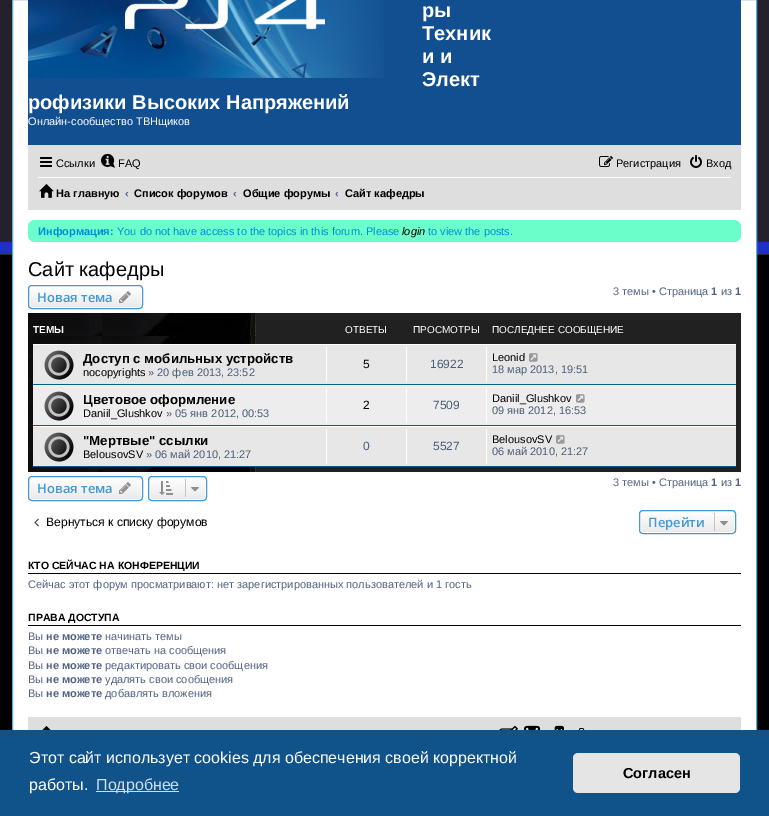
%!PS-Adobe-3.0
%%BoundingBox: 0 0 769 816
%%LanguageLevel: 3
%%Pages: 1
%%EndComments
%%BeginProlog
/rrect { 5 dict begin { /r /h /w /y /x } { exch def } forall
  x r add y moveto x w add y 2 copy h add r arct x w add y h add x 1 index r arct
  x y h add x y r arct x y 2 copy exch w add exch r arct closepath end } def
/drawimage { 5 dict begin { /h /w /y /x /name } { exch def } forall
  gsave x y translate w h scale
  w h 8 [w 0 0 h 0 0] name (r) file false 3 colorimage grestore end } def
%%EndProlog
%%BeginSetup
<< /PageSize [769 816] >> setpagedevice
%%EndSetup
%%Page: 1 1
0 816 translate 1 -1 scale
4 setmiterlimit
0 setgray
0 0 769 816 rectfill
(images/1.raw) 0 0 769 255 drawimage
1 setgray
13 0 743 730 rectfill
0.373 0.659 0.827 setrgbcolor
12.5 -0.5 744 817 rectstroke
0.071 0.31 0.569 setrgbcolor
28 0 713 145 rectfill
(images/2.raw) 28 0 356 78 drawimage
0.871 setgray
28 145 713 65 rectfill
(images/3.raw) 40 157 12 10 drawimage
(images/4.raw) 101 153 14 15 drawimage
(images/5.raw) 599 156 14 11 drawimage
(images/6.raw) 690 155 12 13 drawimage
1 setgray
38 177 693 1 rectfill
(images/7.raw) 39 184 15 14 drawimage
0.42 0.992 0.792 setrgbcolor
28 220 713 22 7 rrect fill
gsave
28 285 115 24 4 rrect clip newpath
gsave newpath 28 286 moveto 143 286 lineto 143 308 lineto 28 308 lineto closepath clip newpath
<< /ShadingType 2 /ColorSpace /DeviceRGB /Coords [86 286 86 308] /Extend [true true] /Function << /FunctionType 2 /Domain [0 1] /C0 [1 1 1] /C1 [0.914 0.914 0.914] /N 1 >> >> shfill grestore
grestore
1 setgray
29.5 286.5 112 21 2.5 rrect stroke
0.267 0.596 0.831 setrgbcolor
28.5 285.5 114 23 3.5 rrect stroke
(images/8.raw) 119 291 12 12 drawimage
0.129 setgray
256 313 485 159 rectfill
(images/9.raw) 28 313 228 159 drawimage
0.906 setgray
33 345 703 39 rectfill
1 setgray
33 344 703 1 rectfill
0 0.376 0.561 setrgbcolor
33 384 703 1 rectfill
(images/10.raw) 44 350 30 30 drawimage
1 setgray
326 347 1 35 rectfill
406 347 1 35 rectfill
486 347 1 35 rectfill
(images/11.raw) 529 353 9 9 drawimage
0.929 setgray
33 386 703 39 rectfill
1 setgray
33 385 703 1 rectfill
0 0.376 0.561 setrgbcolor
33 425 703 1 rectfill
(images/12.raw) 44 391 30 30 drawimage
1 setgray
326 388 1 35 rectfill
406 388 1 35 rectfill
486 388 1 35 rectfill
(images/13.raw) 576 394 9 9 drawimage
0.906 setgray
33 427 703 39 rectfill
1 setgray
33 426 703 1 rectfill
0 0.376 0.561 setrgbcolor
33 466 703 1 rectfill
(images/10.raw) 44 432 30 30 drawimage
1 setgray
326 429 1 35 rectfill
406 429 1 35 rectfill
486 429 1 35 rectfill
(images/11.raw) 556 435 9 9 drawimage
gsave
28 476 115 25 4 rrect clip newpath
gsave newpath 28 477 moveto 143 477 lineto 143 500 lineto 28 500 lineto closepath clip newpath
<< /ShadingType 2 /ColorSpace /DeviceRGB /Coords [86 477 86 500] /Extend [true true] /Function << /FunctionType 2 /Domain [0 1] /C0 [1 1 1] /C1 [0.914 0.914 0.914] /N 1 >> >> shfill grestore
grestore
29.5 477.5 112 22 2.5 rrect stroke
0.267 0.596 0.831 setrgbcolor
28.5 476.5 114 24 3.5 rrect stroke
(images/8.raw) 119 482 12 12 drawimage
gsave
148 476 59 25 4 rrect clip newpath
gsave newpath 148 477 moveto 207 477 lineto 207 500 lineto 148 500 lineto closepath clip newpath
<< /ShadingType 2 /ColorSpace /DeviceRGB /Coords [178 477 178 500] /Extend [true true] /Function << /FunctionType 2 /Domain [0 1] /C0 [1 1 1] /C1 [0.914 0.914 0.914] /N 1 >> >> shfill grestore
grestore
1 setgray
149.5 477.5 56 22 2.5 rrect stroke
0.267 0.596 0.831 setrgbcolor
148.5 476.5 58 24 3.5 rrect stroke
(images/14.raw) 159 481 14 14 drawimage
0.78 0.765 0.749 setrgbcolor
185 479 1 18 rectfill
(images/15.raw) 191 487 8 5 drawimage
(images/16.raw) 34 518 5 9 drawimage
gsave
639 510 97 24 4 rrect clip newpath
gsave newpath 639 511 moveto 736 511 lineto 736 533 lineto 639 533 lineto closepath clip newpath
<< /ShadingType 2 /ColorSpace /DeviceRGB /Coords [688 511 688 533] /Extend [true true] /Function << /FunctionType 2 /Domain [0 1] /C0 [1 1 1] /C1 [0.914 0.914 0.914] /N 1 >> >> shfill grestore
grestore
1 setgray
640.5 511.5 94 21 2.5 rrect stroke
0.267 0.596 0.831 setrgbcolor
639.5 510.5 96 23 3.5 rrect stroke
0.78 0.765 0.749 setrgbcolor
714 513 1 18 rectfill
(images/15.raw) 720 521 8 5 drawimage
0 setgray
28 573 713 1 rectfill
28 625 713 1 rectfill
0.871 setgray
28 717 713 13 rectfill
(images/17.raw) 42 726 9 4 drawimage
(images/18.raw) 499 725 19 5 drawimage
(images/19.raw) 524 725 17 5 drawimage
(images/20.raw) 554 725 10 5 drawimage
(images/21.raw) 578 728 7 2 drawimage
0.059 0.325 0.541 setrgbcolor
0 730 769 86 rectfill
0.812 0.867 0.91 setrgbcolor
96 791 83 1 rectfill
0.898 setgray
573 753 167 40 5 rrect fill
/LiberationSans-Bold [20 0 0 -20 0 0] selectfont
1 setgray
422 17 moveto (ры) show
422 40 moveto (Техник) show
422 63 moveto (и и) show
422 86 moveto (Элект) show
28 109 moveto (рофизики Высоких Напряжений) show
/LiberationSans-Regular [11 0 0 -11 0 0] selectfont
28 125 moveto (Онлайн-сообщество ТВНщиков) show
0 setgray
56 167 moveto (Ссылки) show
118 167 moveto (FAQ) show
616 167 moveto (Регистрация) show
706 167 moveto (Вход) show
/LiberationSans-Bold [11 0 0 -11 0 0] selectfont
56 197 moveto (На главную) show
0.325 0.392 0.51 setrgbcolor
125 197 moveto (‹) show
0 setgray
134 197 moveto (Список форумов) show
0.325 0.392 0.51 setrgbcolor
233 197 moveto (‹) show
0 setgray
243 197 moveto (Общие форумы) show
0.325 0.392 0.51 setrgbcolor
335 197 moveto (‹) show
0 setgray
345 197 moveto (Сайт кафедры) show
0 0.557 0.847 setrgbcolor
38 235 moveto (Информация:) show
/LiberationSans-Regular [11 0 0 -11 0 0] selectfont
117 235 moveto (You do not have access to the topics in this forum. Please) show
/LiberationSans-Italic [11 0 0 -11 0 0] selectfont
0 setgray
402 235 moveto (login) show
/LiberationSans-Regular [11 0 0 -11 0 0] selectfont
0 0.557 0.847 setrgbcolor
428 235 moveto (to view the posts.) show
/LiberationSans-Regular [20 0 0 -20 0 0] selectfont
0 setgray
28 276 moveto (Сайт кафедры) show
/OpenSans-SemiBold [13 0 0 -13 0 0] selectfont
0.267 0.596 0.831 setrgbcolor
37 302 moveto (Новая тема) show
/LiberationSans-Regular [11 0 0 -11 0 0] selectfont
0.325 0.392 0.51 setrgbcolor
613 295 moveto (3 темы • Страница) show
/LiberationSans-Bold [11 0 0 -11 0 0] selectfont
711 295 moveto (1) show
/LiberationSans-Regular [11 0 0 -11 0 0] selectfont
721 295 moveto (из) show
/LiberationSans-Bold [11 0 0 -11 0 0] selectfont
735 295 moveto (1) show
/LiberationSans-Bold [10 0 0 -10 0 0] selectfont
1 setgray
33 333 moveto (ТЕМЫ) show
/LiberationSans-Regular [10 0 0 -10 0 0] selectfont
345 333 moveto (ОТВЕТЫ) show
413 333 moveto (ПРОСМОТРЫ) show
492 333 moveto (ПОСЛЕДНЕЕ СООБЩЕНИЕ) show
/LiberationSans-Bold [13.25 0 0 -13.25 0 0] selectfont
0 setgray
83 363 moveto (Доступ с мобильных устройств) show
/LiberationSans-Regular [11 0 0 -11 0 0] selectfont
83 376 moveto (nocopyrights) show
0.298 0.365 0.467 setrgbcolor
148 376 moveto (» 20 фев 2013, 23:52) show
/LiberationSans-Regular [12 0 0 -12 0 0] selectfont
0 setgray
363 368 moveto (5) show
0.298 0.365 0.467 setrgbcolor
430 368 moveto (16922) show
/LiberationSans-Regular [11 0 0 -11 0 0] selectfont
0 setgray
492 361 moveto (Leonid) show
0.298 0.365 0.467 setrgbcolor
492 373 moveto (18 мар 2013, 19:51) show
/LiberationSans-Bold [13.25 0 0 -13.25 0 0] selectfont
0 setgray
83 404 moveto (Цветовое оформление) show
/LiberationSans-Regular [11 0 0 -11 0 0] selectfont
83 417 moveto (Daniil_Glushkov) show
0.298 0.365 0.467 setrgbcolor
166 417 moveto (» 05 янв 2012, 00:53) show
/LiberationSans-Regular [12 0 0 -12 0 0] selectfont
0 setgray
363 409 moveto (2) show
0.298 0.365 0.467 setrgbcolor
433 409 moveto (7509) show
/LiberationSans-Regular [11 0 0 -11 0 0] selectfont
0 setgray
492 402 moveto (Daniil_Glushkov) show
0.298 0.365 0.467 setrgbcolor
492 414 moveto (09 янв 2012, 16:53) show
/LiberationSans-Bold [13.25 0 0 -13.25 0 0] selectfont
0 setgray
83 445 moveto ("Мертвые" ссылки) show
/LiberationSans-Regular [11 0 0 -11 0 0] selectfont
83 458 moveto (BelousovSV) show
0.298 0.365 0.467 setrgbcolor
146 458 moveto (» 06 май 2010, 21:27) show
/LiberationSans-Regular [12 0 0 -12 0 0] selectfont
363 450 moveto (0) show
433 450 moveto (5527) show
/LiberationSans-Regular [11 0 0 -11 0 0] selectfont
0 setgray
492 443 moveto (BelousovSV) show
0.298 0.365 0.467 setrgbcolor
492 455 moveto (06 май 2010, 21:27) show
/OpenSans-SemiBold [13 0 0 -13 0 0] selectfont
0.267 0.596 0.831 setrgbcolor
37 493 moveto (Новая тема) show
/LiberationSans-Regular [11 0 0 -11 0 0] selectfont
0.325 0.392 0.51 setrgbcolor
613 486 moveto (3 темы • Страница) show
/LiberationSans-Bold [11 0 0 -11 0 0] selectfont
711 486 moveto (1) show
/LiberationSans-Regular [11 0 0 -11 0 0] selectfont
721 486 moveto (из) show
/LiberationSans-Bold [11 0 0 -11 0 0] selectfont
735 486 moveto (1) show
/LiberationSans-Regular [12.1 0 0 -12.1 0 0] selectfont
0 setgray
46 526 moveto (Вернуться к списку форумов) show
/OpenSans-SemiBold [13 0 0 -13 0 0] selectfont
0.267 0.596 0.831 setrgbcolor
648 527 moveto (Перейти) show
/LiberationSans-Bold [10.5 0 0 -10.5 0 0] selectfont
0 setgray
28 569 moveto (КТО СЕЙЧАС НА КОНФЕРЕНЦИИ) show
/LiberationSans-Regular [11 0 0 -11 0 0] selectfont
0.325 0.392 0.51 setrgbcolor
28 588 moveto (Сейчас этот форум просматривают: нет зарегистрированных пользователей и 1 гость) show
/LiberationSans-Bold [10.5 0 0 -10.5 0 0] selectfont
0 setgray
28 621 moveto (ПРАВА ДОСТУПА) show
/LiberationSans-Regular [11 0 0 -11 0 0] selectfont
0.325 0.392 0.51 setrgbcolor
28 640 moveto (Вы) show
/LiberationSans-Bold [11 0 0 -11 0 0] selectfont
46 640 moveto (не можете) show
/LiberationSans-Regular [11 0 0 -11 0 0] selectfont
105 640 moveto (начинать темы) show
28 654 moveto (Вы) show
/LiberationSans-Bold [11 0 0 -11 0 0] selectfont
46 654 moveto (не можете) show
/LiberationSans-Regular [11 0 0 -11 0 0] selectfont
105 654 moveto (отвечать на сообщения) show
28 669 moveto (Вы) show
/LiberationSans-Bold [11 0 0 -11 0 0] selectfont
46 669 moveto (не можете) show
/LiberationSans-Regular [11 0 0 -11 0 0] selectfont
105 669 moveto (редактировать свои сообщения) show
28 683 moveto (Вы) show
/LiberationSans-Bold [11 0 0 -11 0 0] selectfont
46 683 moveto (не можете) show
/LiberationSans-Regular [11 0 0 -11 0 0] selectfont
105 683 moveto (удалять свои сообщения) show
28 697 moveto (Вы) show
/LiberationSans-Bold [11 0 0 -11 0 0] selectfont
46 697 moveto (не можете) show
/LiberationSans-Regular [11 0 0 -11 0 0] selectfont
105 697 moveto (добавлять вложения) show
/LiberationSans-Regular [16 0 0 -16 0 0] selectfont
1 setgray
29 763 moveto (Этот сайт использует cookies для обеспечения своей корректной) show
29 790 moveto (работы.) show
0.812 0.867 0.91 setrgbcolor
96 790 moveto (Подробнее) show
/LiberationSans-Bold [14.5 0 0 -14.5 0 0] selectfont
0 setgray
623 778 moveto (Согласен) show
showpage
%%EOF
